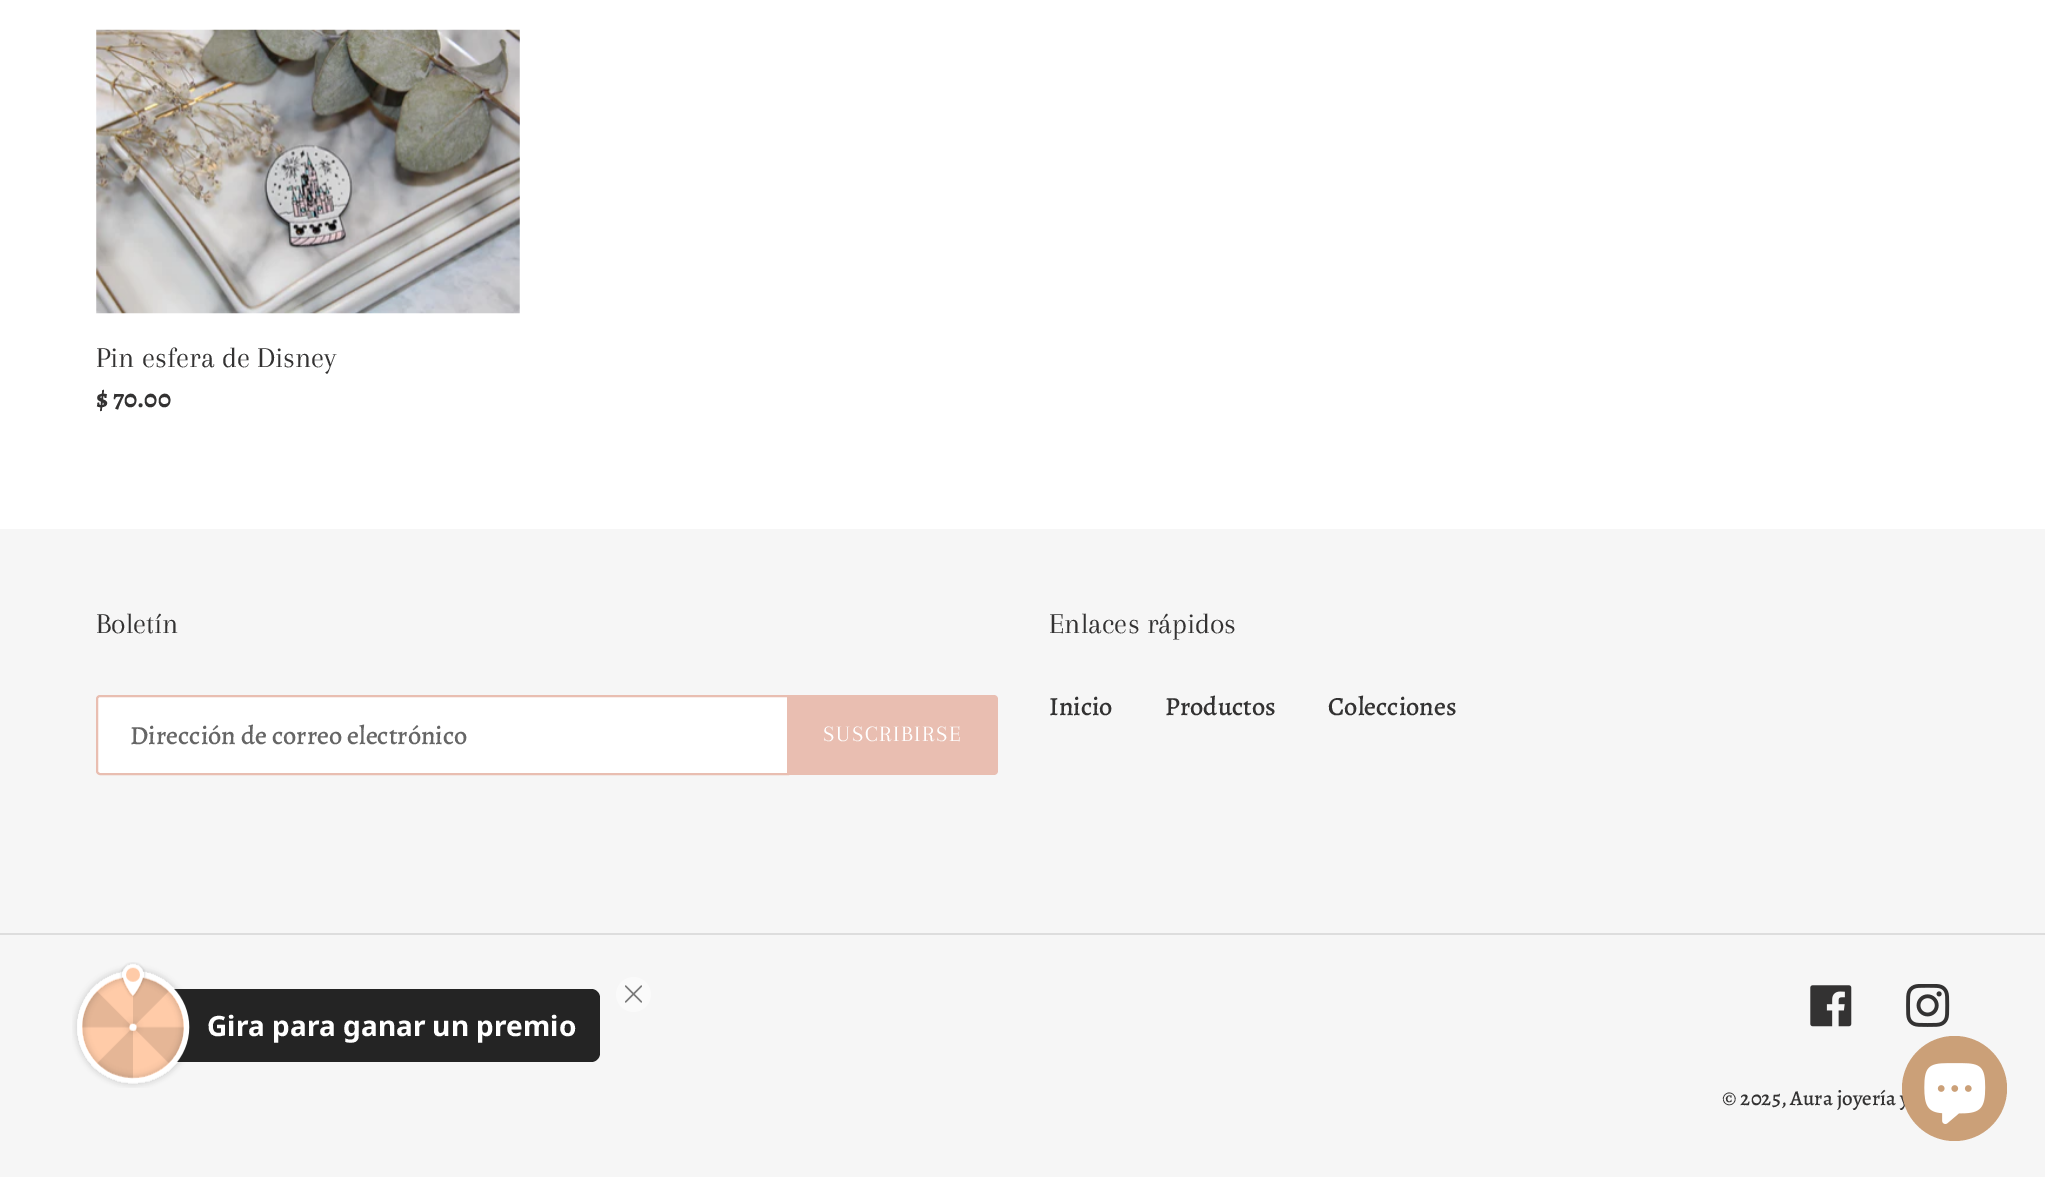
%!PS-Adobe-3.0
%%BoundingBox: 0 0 2045 1177
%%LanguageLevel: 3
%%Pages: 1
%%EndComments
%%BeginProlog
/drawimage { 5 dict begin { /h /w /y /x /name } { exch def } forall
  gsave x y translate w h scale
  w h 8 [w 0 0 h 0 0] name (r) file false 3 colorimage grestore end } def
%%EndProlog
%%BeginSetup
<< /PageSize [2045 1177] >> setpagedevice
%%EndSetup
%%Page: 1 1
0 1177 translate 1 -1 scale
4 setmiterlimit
1 setgray
0 0 2045 1177 rectfill
(images/1.raw) 96 29 424 285 drawimage
0.965 setgray
0 529 2045 648 rectfill
1 setgray
newpath 100 696 moveto 788 696 lineto 788 774 lineto 100 774 lineto 98.5 774 97 772.5 97 771 curveto 97 699 lineto 97 697.5 98.5 696 100 696 curveto closepath gsave fill grestore
0.914 0.745 0.694 setrgbcolor
2 setlinewidth
stroke
newpath 789 695 moveto 994 695 lineto 996 695 998 697 998 699 curveto 998 771 lineto 998 773 996 775 994 775 curveto 789 775 lineto closepath fill
0.867 setgray
0 933 2045 2 rectfill
(images/2.raw) 1810 985 42 42 drawimage
(images/3.raw) 1906 984 44 43 drawimage
0.141 setgray
newpath 172 989 moveto 591 989 lineto 596 989 600 993 600 998 curveto 600 1053 lineto 600 1058 596 1062 591 1062 curveto 172 1062 lineto closepath fill
(images/4.raw) 72 962 118 126 drawimage
0.98 setgray
newpath 633.5 994.5 17.5 0 360 arc closepath fill
(images/5.raw) 625 985 17 18 drawimage
/Arapey-Regular [29.75 0 0 -29.75 0 0] selectfont
0.2 0.196 0.196 setrgbcolor
96 367 moveto (Pin esfera de Disney) show
/Alegreya-Bold [26.25 0 0 -26.25 0 0] selectfont
96 407 moveto ($ 70.00) show
/Arapey-Regular [29.75 0 0 -29.75 0 0] selectfont
96 633 moveto (Boletín) show
/Alegreya-Medium [26.25 0 0 -26.25 0 0] selectfont
0.4 setgray
130 744 moveto (Dirección de correo electrónico) show
/Arapey-Regular [22.75 0 0 -22.75 0 0] selectfont
1 setgray
823 741 moveto 1.75 0 (SUSCRIBIRSE) ashow
/Arapey-Regular [29.75 0 0 -29.75 0 0] selectfont
0.2 0.196 0.196 setrgbcolor
1049 633 moveto (Enlaces rápidos) show
/Alegreya-Medium [26.25 0 0 -26.25 0 0] selectfont
1049 715 moveto (Inicio) show
1165 715 moveto (Productos) show
1328 715 moveto (Colecciones) show
/Alegreya-Medium [21 0 0 -21 0 0] selectfont
1722 1105 moveto (© 2025, Aura joyería y) show
/NotoSans-Bold [28 0 0 -28 0 0] selectfont
1 setgray
207 1036 moveto (Gira para ganar un premio) show
0.796 0.627 0.471 setrgbcolor
newpath 1954.5 1088.5 52.5 0 360 arc closepath fill
(images/6.raw) 1924 1063 62 61 drawimage
showpage
%%EOF
